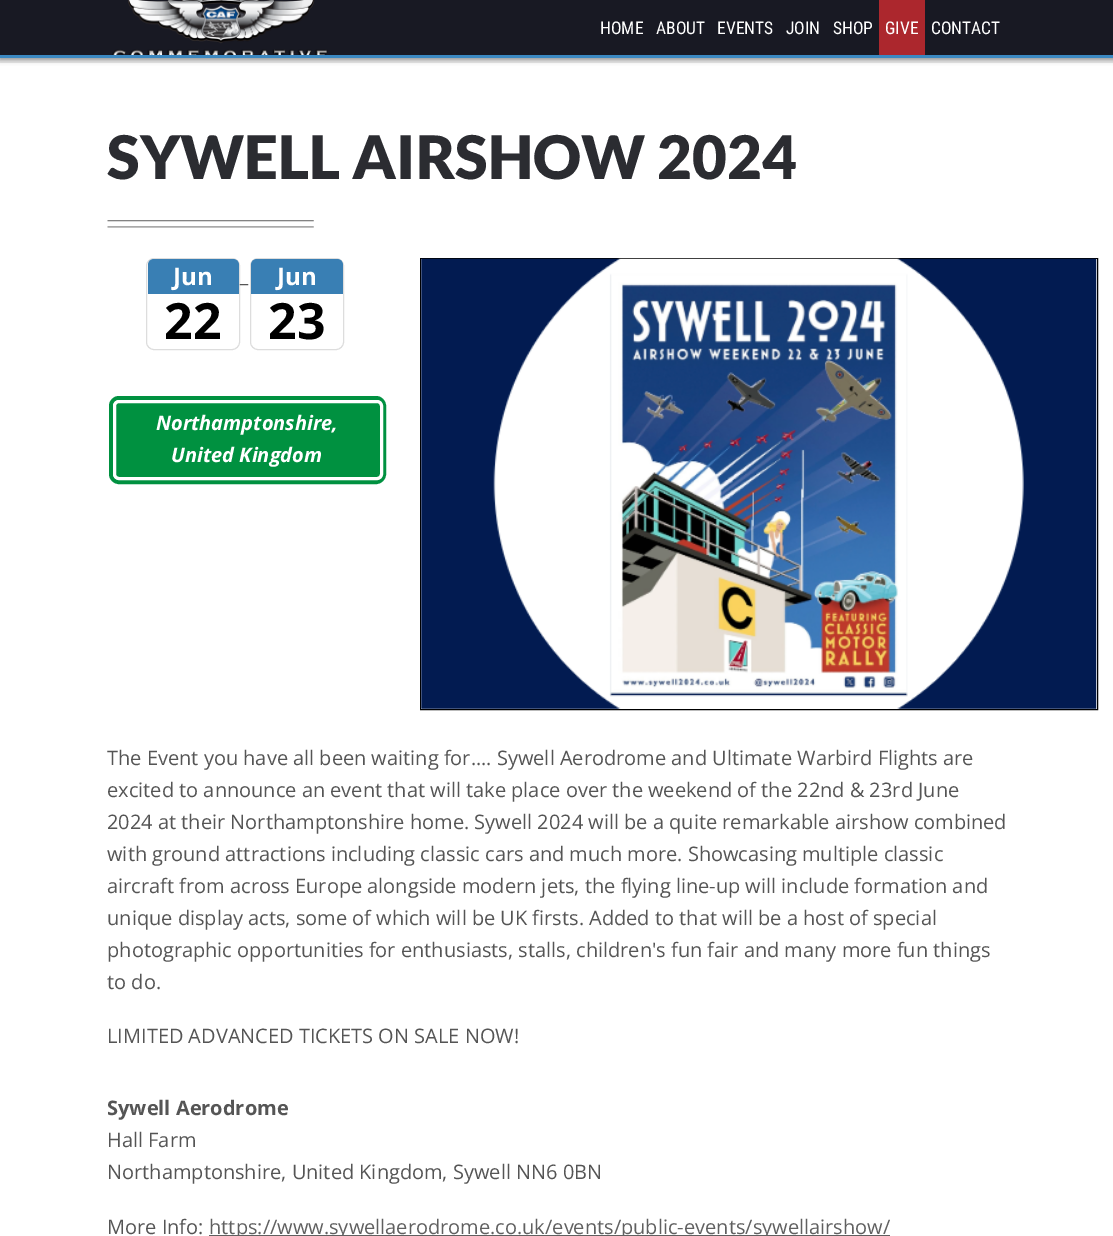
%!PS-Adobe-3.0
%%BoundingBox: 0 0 1113 1236
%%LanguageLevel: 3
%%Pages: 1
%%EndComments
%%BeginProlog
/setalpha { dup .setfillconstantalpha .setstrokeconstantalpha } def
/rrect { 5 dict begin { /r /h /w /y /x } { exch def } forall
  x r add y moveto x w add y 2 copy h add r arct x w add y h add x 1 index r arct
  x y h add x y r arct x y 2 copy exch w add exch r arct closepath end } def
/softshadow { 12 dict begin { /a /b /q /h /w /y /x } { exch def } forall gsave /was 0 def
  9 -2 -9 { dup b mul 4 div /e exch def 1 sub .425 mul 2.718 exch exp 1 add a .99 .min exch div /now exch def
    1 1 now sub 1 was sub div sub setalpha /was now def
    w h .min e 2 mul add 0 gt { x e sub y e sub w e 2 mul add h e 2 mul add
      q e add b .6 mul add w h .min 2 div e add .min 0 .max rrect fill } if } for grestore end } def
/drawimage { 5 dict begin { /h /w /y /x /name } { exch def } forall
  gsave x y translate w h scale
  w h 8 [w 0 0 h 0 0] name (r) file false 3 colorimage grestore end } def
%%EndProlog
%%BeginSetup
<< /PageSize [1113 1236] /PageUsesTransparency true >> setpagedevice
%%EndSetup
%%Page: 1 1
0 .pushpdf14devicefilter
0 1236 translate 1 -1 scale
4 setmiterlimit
1 setgray
0 0 1113 1236 rectfill
0.922 setgray
0 58 1113 5 rectfill
0 setgray
0 1 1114 58 0 3 0.5 softshadow
0.094 0.098 0.137 setrgbcolor
0 0 1113 55 rectfill
0.231 0.533 0.757 setrgbcolor
0 55 1113 3 rectfill
(images/1.raw) 112 0 216 55 drawimage
0.675 0.153 0.176 setrgbcolor
879 0 46 55 rectfill
(images/2.raw) 107 220 207 8 drawimage
0.867 setgray
146.5 258.5 93 91 7.5 rrect stroke
0.224 0.498 0.706 setrgbcolor
newpath 154 259 moveto 233 259 lineto 236.5 259 239 261.5 239 265 curveto 239 294 lineto 148 294 lineto 148 265 lineto 148 261.5 150.5 259 154 259 curveto closepath fill
0.867 setgray
250.5 258.5 93 91 7.5 rrect stroke
0.224 0.498 0.706 setrgbcolor
newpath 257 259 moveto 337 259 lineto 340.5 259 343 261.5 343 265 curveto 343 294 lineto 251 294 lineto 251 265 lineto 251 261.5 253.5 259 257 259 curveto closepath fill
0 0.569 0.251 setrgbcolor
4 setlinewidth
111 398 273 84 8 rrect stroke
114.5 401.5 267 77 4.5 rrect gsave fill grestore
1 setgray
3 setlinewidth
stroke
0 setgray
1 setlinewidth
420.5 258.5 677 451 rectstroke
(images/3.raw) 421 258 676 451 drawimage
0.376 setgray
209 1235 681 1 rectfill
/RobotoCondensed-Regular [17.5 0 0 -17.5 0 0] selectfont
1 setgray
600 34 moveto (HOME) show
656 34 moveto (ABOUT) show
717 34 moveto (EVENTS) show
786 34 moveto (JOIN) show
833 34 moveto (SHOP) show
885 34 moveto (GIVE) show
931 34 moveto (CONTACT) show
/Lato-Black [60 0 0 -60 0 0] selectfont
0.169 0.173 0.192 setrgbcolor
107 179 moveto (SYWELL AIRSHOW 2024) show
/OpenSans-Bold [24 0 0 -24 0 0] selectfont
1 setgray
173 285 moveto (Jun) show
/OpenSans-Bold [50 0 0 -50 0 0] selectfont
0 setgray
164 339 moveto (22) show
/OpenSans-Regular [20 0 0 -20 0 0] selectfont
0.333 setgray
239 290 moveto (–) show
/OpenSans-Bold [24 0 0 -24 0 0] selectfont
1 setgray
277 285 moveto (Jun) show
/OpenSans-Bold [50 0 0 -50 0 0] selectfont
0 setgray
268 339 moveto (23) show
/OpenSans-BoldItalic [20 0 0 -20 0 0] selectfont
1 setgray
156 430 moveto (Northamptonshire,) show
171 462 moveto (United Kingdom) show
/OpenSans-Regular [20 0 0 -20 0 0] selectfont
0.333 setgray
107 765 moveto (The Event you have all been waiting for.... Sywell Aerodrome and Ultimate Warbird Flights are) show
107 797 moveto (excited to announce an event that will take place over the weekend of the 22nd & 23rd June) show
107 829 moveto (2024 at their Northamptonshire home. Sywell 2024 will be a quite remarkable airshow combined) show
107 861 moveto (with ground attractions including classic cars and much more. Showcasing multiple classic) show
107 893 moveto (aircraft from across Europe alongside modern jets, the flying line-up will include formation and) show
107 925 moveto (unique display acts, some of which will be UK firsts. Added to that will be a host of special) show
107 957 moveto (photographic opportunities for enthusiasts, stalls, children's fun fair and many more fun things) show
107 989 moveto (to do.) show
107 1043 moveto (LIMITED ADVANCED TICKETS ON SALE NOW!) show
/OpenSans-Bold [20 0 0 -20 0 0] selectfont
107 1115 moveto (Sywell Aerodrome) show
/OpenSans-Regular [20 0 0 -20 0 0] selectfont
107 1147 moveto (Hall Farm) show
107 1179 moveto (Northamptonshire, United Kingdom, Sywell NN6 0BN) show
107 1234 moveto (More Info:) show
0.376 setgray
209 1234 moveto (https://www.sywellaerodrome.co.uk/events/public-events/sywellairshow/) show
.poppdf14devicefilter showpage
%%EOF
